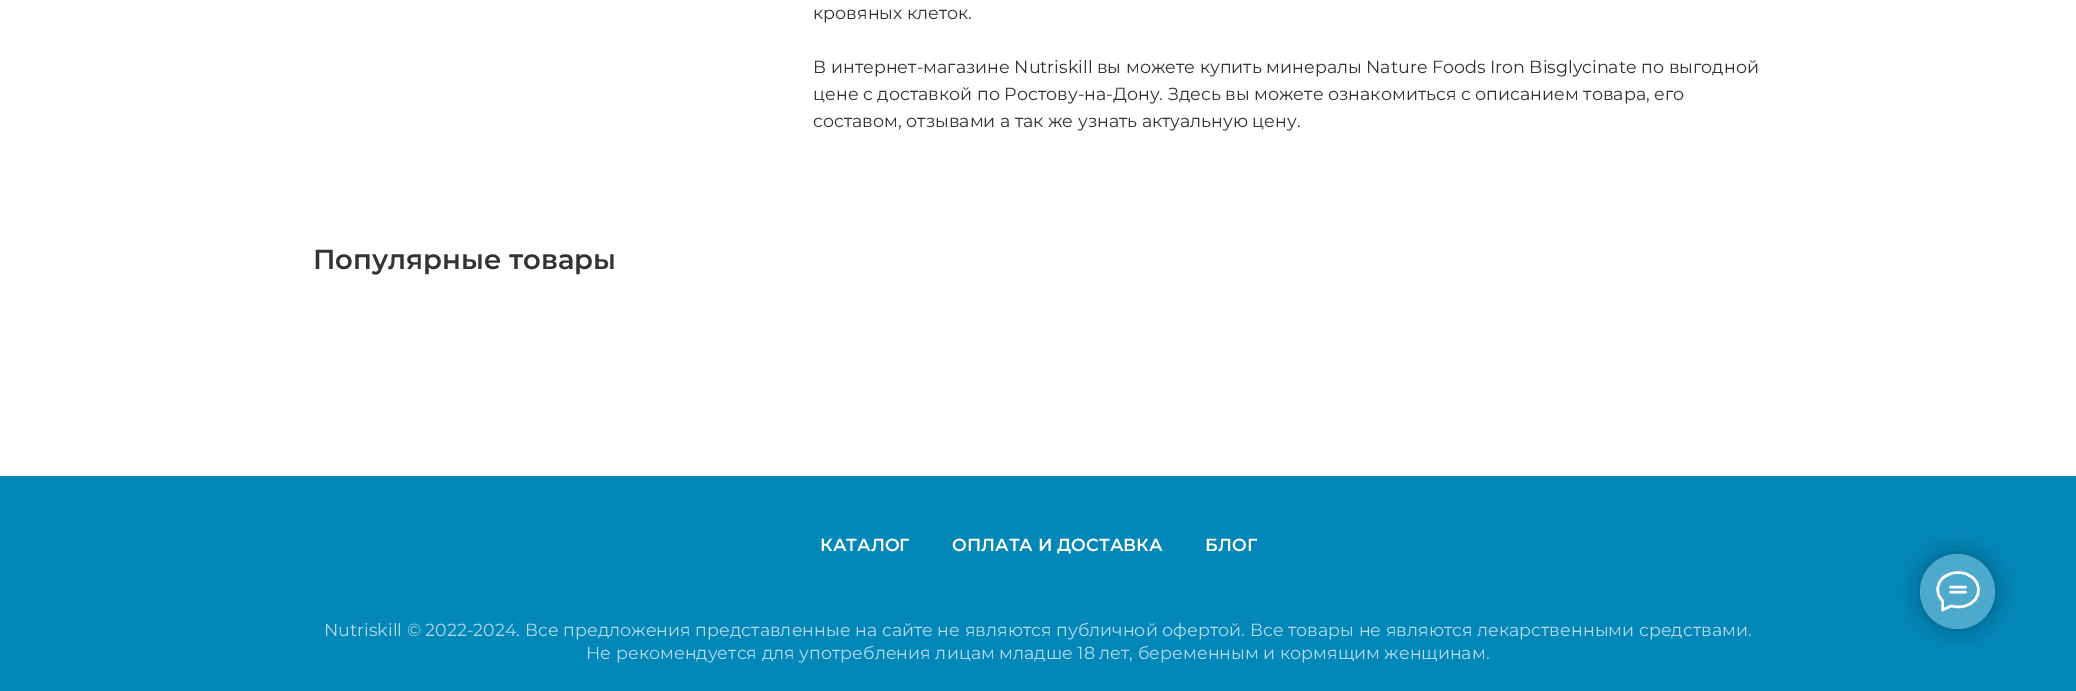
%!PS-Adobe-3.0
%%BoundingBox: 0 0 2076 691
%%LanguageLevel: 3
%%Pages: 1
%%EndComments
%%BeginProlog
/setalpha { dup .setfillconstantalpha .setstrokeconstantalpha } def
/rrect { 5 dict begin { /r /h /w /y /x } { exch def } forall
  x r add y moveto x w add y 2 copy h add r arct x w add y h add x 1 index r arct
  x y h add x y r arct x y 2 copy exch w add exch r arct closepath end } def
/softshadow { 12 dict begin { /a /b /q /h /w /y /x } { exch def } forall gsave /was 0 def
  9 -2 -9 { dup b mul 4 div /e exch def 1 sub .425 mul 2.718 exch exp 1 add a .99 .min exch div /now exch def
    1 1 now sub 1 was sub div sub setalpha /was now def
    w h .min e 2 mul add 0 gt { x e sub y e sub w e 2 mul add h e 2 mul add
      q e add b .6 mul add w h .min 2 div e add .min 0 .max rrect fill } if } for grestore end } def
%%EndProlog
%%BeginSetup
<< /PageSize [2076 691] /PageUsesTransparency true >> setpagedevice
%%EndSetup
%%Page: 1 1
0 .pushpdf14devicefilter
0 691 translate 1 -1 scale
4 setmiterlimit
1 setgray
0 0 2076 691 rectfill
0.008 0.529 0.722 setrgbcolor
0 476 2076 215 rectfill
0 setgray
1920 554 75 75 37.5 12.5 0.3 softshadow
0.302 0.667 0.804 setrgbcolor
newpath 1957.5 591.5 37.5 0 360 arc closepath fill
1 setgray
2.5 setlinewidth
1 setlinecap
1 setlinejoin
newpath 1950.5 587 moveto 1965.5 587 lineto 1950.5 592 moveto 1965.5 592 lineto 1942.5 600.5 moveto 1935.5 594 1936 583.5 1943.5 577.5 curveto 1947.5 574 1953 572.5 1958 572.5 curveto 1982.5 572.5 1986.5 602.5 1962.5 606.5 curveto 1958 607.5 1955 606.5 1951 606 curveto 1942.5 610 lineto closepath stroke
/Montserrat-Regular [17.5 0 0 -17.5 0 0] selectfont
0.2 setgray
813 19 moveto (кровяных клеток.) show
813 73 moveto (В интернет-магазине Nutriskill вы можете купить минералы Nature Foods Iron Bisglycinate по выгодной) show
813 100 moveto (цене с доставкой по Ростову-на-Дону. Здесь вы можете ознакомиться с описанием товара, его) show
813 127 moveto (составом, отзывами а так же узнать актуальную цену.) show
/Montserrat-SemiBold [27.5 0 0 -27.5 0 0] selectfont
313 269 moveto (Популярные товары) show
/Montserrat-SemiBold [17.5 0 0 -17.5 0 0] selectfont
1 setgray
820 551 moveto (КАТАЛОГ) show
952 551 moveto (ОПЛАТА И ДОСТАВКА) show
1205 551 moveto (БЛОГ) show
/Montserrat-Regular [17.5 0 0 -17.5 0 0] selectfont
0.702 0.859 0.918 setrgbcolor
324 636 moveto (Nutriskill © 2022-2024. Все предложения представленные на сайте не являются публичной офертой. Все товары не являются лекарственными средствами.) show
586 659 moveto (Не рекомендуется для употребления лицам младше 18 лет, беременным и кормящим женщинам.) show
.poppdf14devicefilter showpage
%%EOF
